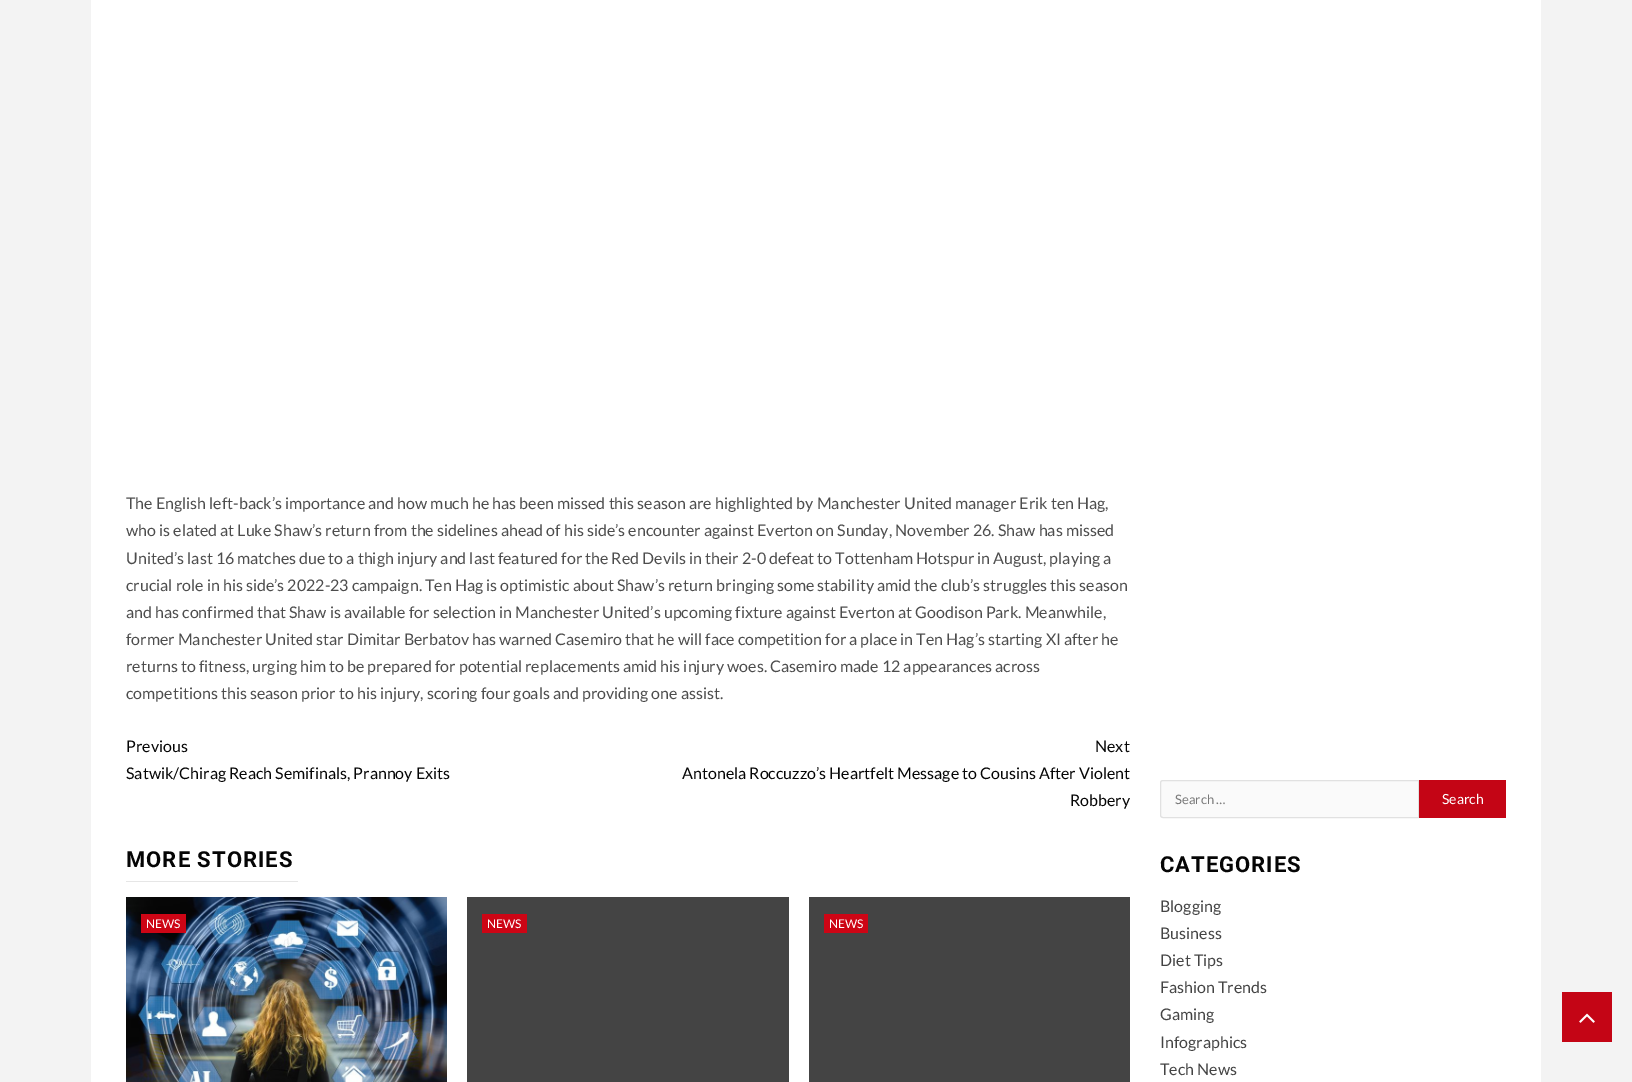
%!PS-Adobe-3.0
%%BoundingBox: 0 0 1632 1082
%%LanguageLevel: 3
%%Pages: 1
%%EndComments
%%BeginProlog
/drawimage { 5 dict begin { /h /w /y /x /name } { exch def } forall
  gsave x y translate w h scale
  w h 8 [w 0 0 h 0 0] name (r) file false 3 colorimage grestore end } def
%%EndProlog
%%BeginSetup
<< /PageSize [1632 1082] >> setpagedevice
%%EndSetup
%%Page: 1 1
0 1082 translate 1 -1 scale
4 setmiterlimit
0.953 setgray
0 0 1632 1082 rectfill
1 setgray
91 0 1450 1082 rectfill
0.902 setgray
126 881 172 1 rectfill
(images/1.raw) 126 897 321 185 drawimage
0.804 0.02 0.082 setrgbcolor
141 914 45 19 rectfill
0.267 setgray
467 897 322 185 rectfill
0.804 0.02 0.082 setrgbcolor
482 914 45 19 rectfill
0.267 setgray
809 897 321 185 rectfill
0.804 0.02 0.082 setrgbcolor
824 914 44 19 rectfill
0.98 setgray
newpath 1163 780.5 moveto 1418.5 780.5 lineto 1418.5 817.5 lineto 1163 817.5 lineto 1161.5 817.5 1160.5 816.5 1160.5 815 curveto 1160.5 783 lineto 1160.5 781.5 1161.5 780.5 1163 780.5 curveto closepath gsave fill grestore
0.882 setgray
stroke
0.769 0.02 0.082 setrgbcolor
1419 780 87 38 rectfill
1562 992 50 50 rectfill
(images/2.raw) 1579 1013 16 10 drawimage
/Lato-Regular [16 0 0 -16 0 0] selectfont
0.302 setgray
126 509 moveto (The English left-back’s importance and how much he has been missed this season are highlighted by Manchester United manager Erik ten Hag,) show
126 536 moveto (who is elated at Luke Shaw’s return from the sidelines ahead of his side’s encounter against Everton on Sunday, November 26. Shaw has missed) show
126 564 moveto (United’s last 16 matches due to a thigh injury and last featured for the Red Devils in their 2-0 defeat to Tottenham Hotspur in August, playing a) show
126 591 moveto (crucial role in his side’s 2022-23 campaign. Ten Hag is optimistic about Shaw’s return bringing some stability amid the club’s struggles this season) show
126 618 moveto (and has confirmed that Shaw is available for selection in Manchester United’s upcoming fixture against Everton at Goodison Park. Meanwhile,) show
126 645 moveto (former Manchester United star Dimitar Berbatov has warned Casemiro that he will face competition for a place in Ten Hag’s starting XI after he) show
126 672 moveto (returns to fitness, urging him to be prepared for potential replacements amid his injury woes. Casemiro made 12 appearances across) show
126 699 moveto (competitions this season prior to his injury, scoring four goals and providing one assist.) show
0.02 setgray
126 752 moveto (Previous) show
126 779 moveto (Satwik/Chirag Reach Semifinals, Prannoy Exits) show
1095 752 moveto (Next) show
682 779 moveto (Antonela Roccuzzo’s Heartfelt Message to Cousins After Violent) show
1070 806 moveto (Robbery) show
/Roboto-Bold [22 0 0 -22 0 0] selectfont
126 867 moveto 1 0 (MORE STORIES) ashow
/Lato-Regular [12 0 0 -12 0 0] selectfont
1 setgray
146 928 moveto (NEWS) show
487 928 moveto (NEWS) show
829 928 moveto (NEWS) show
/Lato-Regular [13 0 0 -13 0 0] selectfont
0.471 setgray
1175 804 moveto (Search …) show
/Lato-Regular [14 0 0 -14 0 0] selectfont
1 setgray
1442 804 moveto (Search) show
/Roboto-Bold [22 0 0 -22 0 0] selectfont
0.02 setgray
1160 872 moveto 1 0 (CATEGORIES) ashow
/Lato-Regular [16 0 0 -16 0 0] selectfont
0.267 setgray
1160 912 moveto (Blogging) show
1160 939 moveto (Business) show
1160 966 moveto (Diet Tips) show
1160 993 moveto (Fashion Trends) show
1160 1020 moveto (Gaming) show
1160 1048 moveto (Infographics) show
1160 1075 moveto (Tech News) show
showpage
%%EOF
